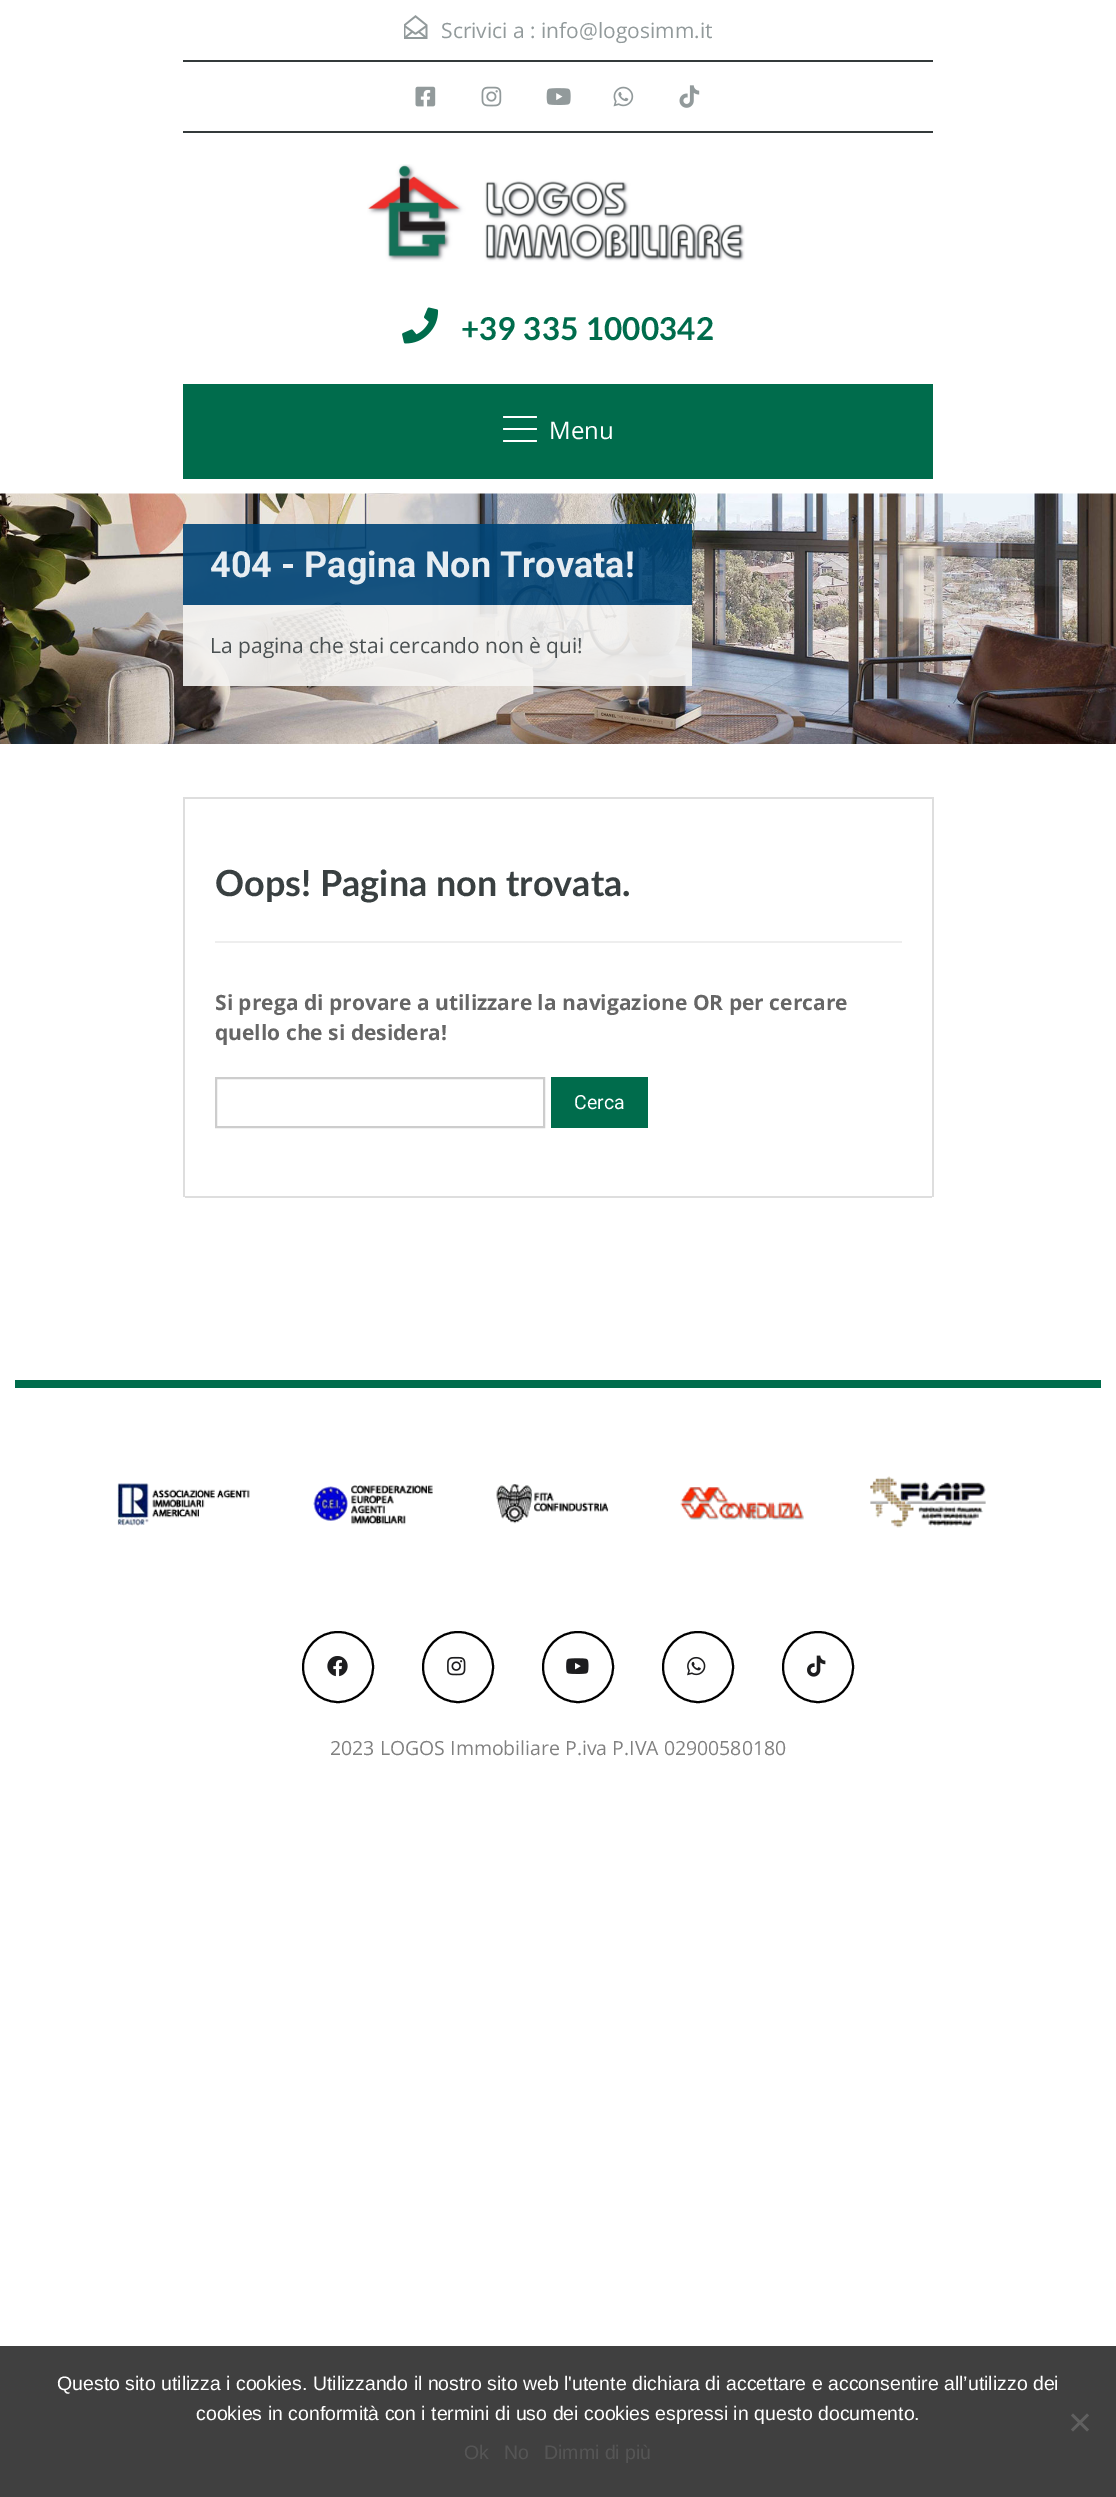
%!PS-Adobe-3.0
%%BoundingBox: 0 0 1116 2497
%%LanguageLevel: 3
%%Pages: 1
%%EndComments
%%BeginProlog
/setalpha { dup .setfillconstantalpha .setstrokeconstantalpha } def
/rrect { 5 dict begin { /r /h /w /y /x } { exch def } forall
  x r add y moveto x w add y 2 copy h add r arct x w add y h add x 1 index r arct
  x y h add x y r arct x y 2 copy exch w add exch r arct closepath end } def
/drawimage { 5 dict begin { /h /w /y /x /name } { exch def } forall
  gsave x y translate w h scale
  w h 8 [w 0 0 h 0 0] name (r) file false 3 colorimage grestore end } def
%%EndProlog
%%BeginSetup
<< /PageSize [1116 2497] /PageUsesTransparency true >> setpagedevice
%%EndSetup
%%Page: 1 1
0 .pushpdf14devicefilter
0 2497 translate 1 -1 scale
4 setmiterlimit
1 setgray
0 0 1116 2497 rectfill
0.204 0.227 0.231 setrgbcolor
183 131 750 2 rectfill
(images/1.raw) 404 15 24 24 drawimage
183 60 750 2 rectfill
(images/2.raw) 415 86 21 21 drawimage
(images/3.raw) 481 86 21 21 drawimage
(images/4.raw) 546 88 25 17 drawimage
(images/5.raw) 613 86 21 21 drawimage
(images/6.raw) 679 85 21 23 drawimage
(images/7.raw) 367 164 378 98 drawimage
(images/8.raw) 402 307 37 37 drawimage
0 0.424 0.298 setrgbcolor
183 384 750 95 rectfill
1 setgray
503 428 34 2 1 rrect fill
503 416 34 2 1 rrect fill
503 440 34 2 1 rrect fill
(images/9.raw) 0 493 1116 251 drawimage
0.9 setalpha
0 0.267 0.463 setrgbcolor
183 524 509 81 rectfill
0.961 0.957 0.949 setrgbcolor
183 605 509 81 rectfill
1 setalpha
0.871 setgray
932 797 2 400 rectfill
183 797 2 400 rectfill
185 797 747 2 rectfill
185 1196 747 2 rectfill
0.933 setgray
215 941 687 2 rectfill
0.804 setgray
2 setlinewidth
216 1078 328 49 rectstroke
0 0.424 0.298 setrgbcolor
551 1077 97 51 rectfill
15 1380 1086 8 rectfill
(images/10.raw) 117 1483 133 43 drawimage
(images/11.raw) 313 1485 120 40 drawimage
(images/12.raw) 496 1484 113 40 drawimage
(images/13.raw) 680 1487 124 33 drawimage
(images/14.raw) 870 1476 116 52 drawimage
0 setgray
newpath 338 1667 35 0 360 arc closepath stroke
(images/15.raw) 327 1656 21 21 drawimage
newpath 458 1667 35 0 360 arc closepath stroke
(images/16.raw) 447 1656 19 20 drawimage
newpath 578 1667 35 0 360 arc closepath stroke
(images/17.raw) 566 1658 23 16 drawimage
newpath 698 1667 35 0 360 arc closepath stroke
(images/18.raw) 687 1656 19 20 drawimage
newpath 818 1667 35 0 360 arc closepath stroke
(images/19.raw) 807 1655 19 22 drawimage
0.251 setgray
0 2346 1116 151 rectfill
0.376 setgray
newpath 1087 2413.5 moveto 1089 2415.5 lineto 1073 2431.5 lineto 1071 2429.5 lineto closepath fill
newpath 1071 2415.5 moveto 1073 2413.5 lineto 1089 2429.5 lineto 1087 2431.5 lineto closepath fill
/OpenSans-Regular [21 0 0 -21 0 0] selectfont
0.573 0.604 0.608 setrgbcolor
441 38 moveto (Scrivici a : info@logosimm.it) show
/Lato-Bold [31.5 0 0 -31.5 0 0] selectfont
0 0.424 0.298 setrgbcolor
461 340 moveto (+39 335 1000342) show
/OpenSans-Regular [24 0 0 -24 0 0] selectfont
1 setgray
549 439 moveto (Menu) show
/Roboto-Bold [36 0 0 -36 0 0] selectfont
0.906 0.929 0.949 setrgbcolor
210 577 moveto (404 - Pagina Non Trovata!) show
/OpenSans-Regular [21 0 0 -21 0 0] selectfont
0.29 0.314 0.318 setrgbcolor
210 653 moveto (La pagina che stai cercando non è qui!) show
/Lato-Bold [36 0 0 -36 0 0] selectfont
0.224 0.251 0.255 setrgbcolor
215 896 moveto (Oops! Pagina non trovata.) show
/OpenSans-Bold [21 0 0 -21 0 0] selectfont
0.4 setgray
215 1010 moveto (Si prega di provare a utilizzare la navigazione OR per cercare) show
215 1040 moveto (quello che si desidera!) show
/Roboto-Regular [19.5 0 0 -19.5 0 0] selectfont
1 setgray
574 1109 moveto (Cerca) show
/OpenSans-Regular [19.5 0 0 -19.5 0 0] selectfont
0.502 setgray
330 1755 moveto (2023 LOGOS Immobiliare P.iva P.IVA 02900580180) show
/LiberationSans-Regular [19.5 0 0 -19.5 0 0] selectfont
1 setgray
57 2390 moveto (Questo sito utilizza i cookies. Utilizzando il nostro sito web l'utente dichiara di accettare e acconsentire all’utilizzo dei) show
196 2420 moveto (cookies in conformità con i termini di uso dei cookies espressi in questo documento.) show
0.333 setgray
464 2459 moveto (Ok) show
504 2459 moveto (No) show
544 2459 moveto (Dimmi di più) show
.poppdf14devicefilter showpage
%%EOF
